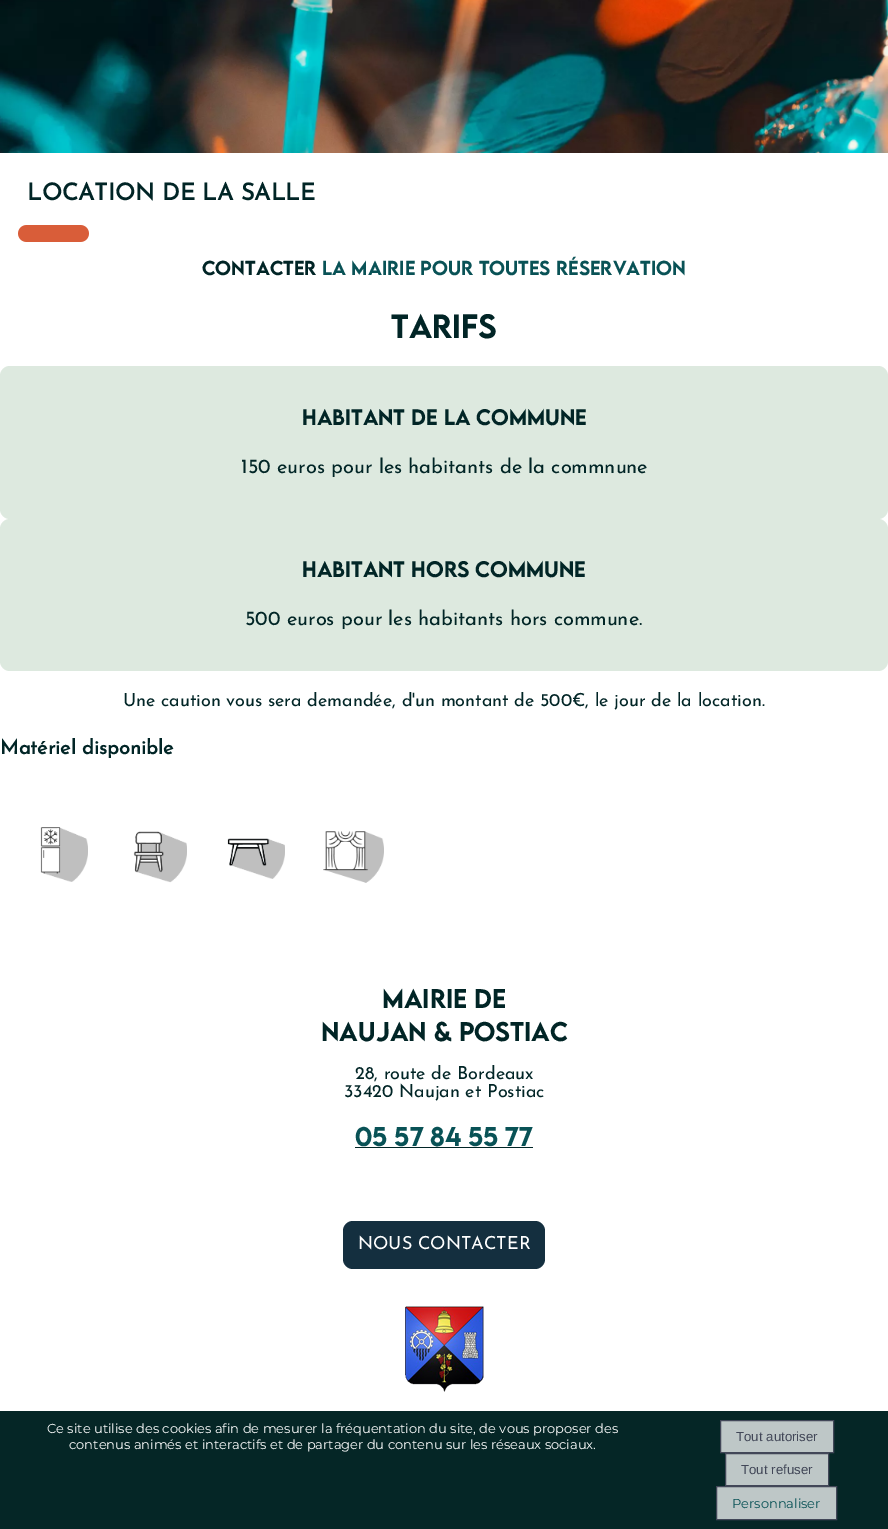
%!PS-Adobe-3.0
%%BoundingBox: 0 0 888 1529
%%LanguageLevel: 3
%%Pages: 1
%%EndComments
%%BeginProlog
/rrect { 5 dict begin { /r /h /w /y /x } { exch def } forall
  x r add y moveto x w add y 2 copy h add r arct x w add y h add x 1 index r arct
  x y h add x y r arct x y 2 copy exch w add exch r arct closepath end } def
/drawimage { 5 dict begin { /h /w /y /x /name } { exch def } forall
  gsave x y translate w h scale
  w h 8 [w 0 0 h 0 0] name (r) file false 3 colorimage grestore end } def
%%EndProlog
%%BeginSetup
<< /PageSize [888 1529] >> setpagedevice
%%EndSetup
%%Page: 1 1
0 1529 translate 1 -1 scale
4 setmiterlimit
1 setgray
0 0 888 1529 rectfill
(images/1.raw) 0 0 888 153 drawimage
(images/2.raw) 18 225 71 17 drawimage
0.867 0.914 0.875 setrgbcolor
0 366 888 153 10 rrect fill
0 519 888 152 10 rrect fill
(images/3.raw) 40 827 48 55 drawimage
(images/4.raw) 133 831 54 52 drawimage
(images/5.raw) 227 838 58 41 drawimage
(images/6.raw) 323 831 61 52 drawimage
0.004 0.145 0.149 setrgbcolor
355 1147 178 1 rectfill
0.078 0.184 0.247 setrgbcolor
343 1221 202 48 10 rrect fill
(images/7.raw) 405 1306 79 86 drawimage
0.02 0.149 0.149 setrgbcolor
0 1411 888 118 rectfill
0.745 0.78 0.78 setrgbcolor
newpath 720.5 1420.5 moveto 833.5 1420.5 lineto 833.5 1452.5 lineto 720.5 1452.5 lineto closepath gsave fill grestore
0.259 0.278 0.345 setrgbcolor
stroke
0.745 0.78 0.78 setrgbcolor
newpath 725.5 1453.5 moveto 828.5 1453.5 lineto 828.5 1485.5 lineto 725.5 1485.5 lineto closepath gsave fill grestore
0.259 0.278 0.345 setrgbcolor
stroke
0.745 0.78 0.78 setrgbcolor
newpath 716.5 1486.5 moveto 836.5 1486.5 lineto 836.5 1519.5 lineto 716.5 1519.5 lineto closepath gsave fill grestore
0.259 0.278 0.345 setrgbcolor
stroke
/JosefinSans-Bold [23.4 0 0 -23.4 0 0] selectfont
0.004 0.145 0.149 setrgbcolor
27 200 moveto (LOCATION DE LA SALLE) show
/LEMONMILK-Medium [18 0 0 -18 0 0] selectfont
202 275 moveto (Contacter) show
0.035 0.322 0.337 setrgbcolor
322 275 moveto (la mairie pour toutes réservation) show
/LEMONMILK-Medium [30 0 0 -30 0 0] selectfont
0.004 0.145 0.149 setrgbcolor
391 338 moveto (Tarifs) show
/LEMONMILK-Medium [20 0 0 -20 0 0] selectfont
302 425 moveto (Habitant de la commune) show
/JosefinSans-Thin [20 0 0 -20 0 0] selectfont
241 473 moveto (150 euros pour les habitants de la commnune) show
/LEMONMILK-Medium [20 0 0 -20 0 0] selectfont
302 577 moveto (Habitant hors commune) show
/JosefinSans-Thin [20 0 0 -20 0 0] selectfont
245 625 moveto (500 euros pour les habitants hors commune.) show
/JosefinSans-Thin [18 0 0 -18 0 0] selectfont
123 706 moveto (Une caution vous sera demandée, d'un montant de 500€, le jour de la location.) show
/JosefinSans-Bold [20 0 0 -20 0 0] selectfont
0 754 moveto (Matériel disponible) show
/LEMONMILK-Medium [24 0 0 -24 0 0] selectfont
382 1008 moveto (Mairie de) show
321 1041 moveto (Naujan & Postiac) show
/JosefinSans-Thin [18 0 0 -18 0 0] selectfont
355 1079 moveto (28, route de Bordeaux) show
344 1097 moveto (33420 Naujan et Postiac) show
/LEMONMILK-Medium [24 0 0 -24 0 0] selectfont
0.035 0.322 0.337 setrgbcolor
355 1146 moveto (05 57 84 55 77) show
/JosefinSans-Thin [18 0 0 -18 0 0] selectfont
1 setgray
358 1249 moveto (NOUS CONTACTER) show
/Montserrat-Regular [13 0 0 -13 0 0] selectfont
47 1433 moveto (Ce site utilise des cookies afin de mesurer la fréquentation du site, de vous proposer des) show
69 1449 moveto (contenus animés et interactifs et de partager du contenu sur les réseaux sociaux.) show
/LiberationSans-Regular [13.25 0 0 -13.25 0 0] selectfont
0.259 0.278 0.345 setrgbcolor
736 1441 moveto (Tout autoriser) show
741 1474 moveto (Tout refuser) show
/Montserrat-Regular [13 0 0 -13 0 0] selectfont
0.035 0.322 0.337 setrgbcolor
732 1508 moveto (Personnaliser) show
showpage
%%EOF
